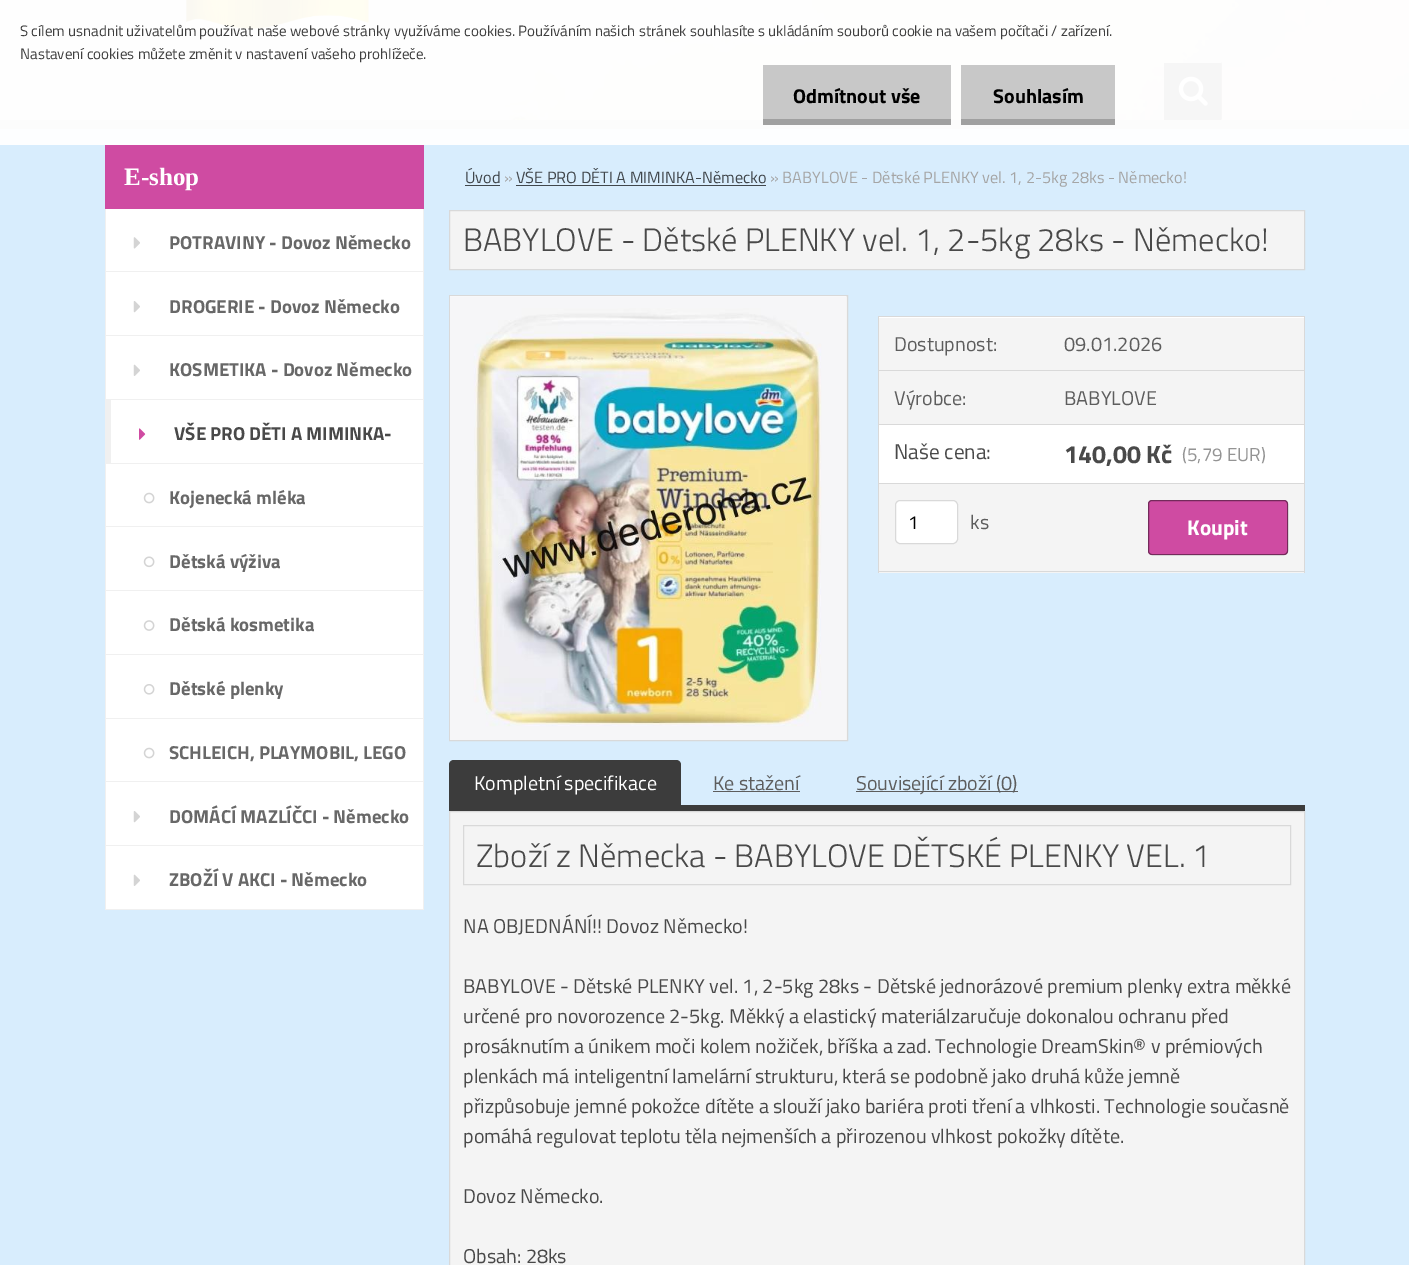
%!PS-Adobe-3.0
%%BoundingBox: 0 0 1409 1265
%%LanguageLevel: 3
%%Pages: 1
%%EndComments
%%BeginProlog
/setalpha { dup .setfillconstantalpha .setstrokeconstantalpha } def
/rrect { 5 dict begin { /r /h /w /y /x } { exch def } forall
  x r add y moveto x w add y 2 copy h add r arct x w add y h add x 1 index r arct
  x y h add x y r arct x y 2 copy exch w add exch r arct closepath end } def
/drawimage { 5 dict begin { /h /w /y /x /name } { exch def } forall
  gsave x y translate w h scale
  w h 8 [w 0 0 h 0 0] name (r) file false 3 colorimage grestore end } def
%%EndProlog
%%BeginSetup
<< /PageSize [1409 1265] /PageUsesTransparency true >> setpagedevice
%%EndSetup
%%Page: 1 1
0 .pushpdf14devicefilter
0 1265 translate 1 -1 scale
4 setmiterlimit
0.847 0.929 0.992 setrgbcolor
0 0 1409 1265 rectfill
(images/1.raw) 0 0 1409 120 drawimage
0.784 setgray
763 65 188 54 rectfill
0.988 setgray
0 120 1409 9 rectfill
0.627 setgray
763 119 188 6 rectfill
0.784 setgray
961 65 154 54 rectfill
0.627 setgray
961 119 154 6 rectfill
(images/2.raw) 186 0 183 30 drawimage
0.965 setgray
1164 63 57 57 rectfill
(images/3.raw) 1178 76 30 30 drawimage
0.5 setalpha
0.949 setgray
newpath 1221 120 moveto 1221 62 lineto 1222 64 lineto 1222 119 lineto closepath fill
1 setalpha
0.992 0.996 1 setrgbcolor
0 129 1409 16 rectfill
0.812 0.294 0.635 setrgbcolor
105 145 319 64 rectfill
1 setgray
106 209 317 126 rectfill
0.941 setgray
423 209 1 701 rectfill
105 271 319 1 rectfill
105 209 1 64 rectfill
(images/4.raw) 133 237 7 12 drawimage
105 335 319 1 rectfill
105 273 1 63 rectfill
(images/5.raw) 133 301 7 12 drawimage
1 setgray
106 336 317 63 rectfill
0.941 setgray
105 399 319 1 rectfill
105 336 1 64 rectfill
(images/6.raw) 133 364 7 12 drawimage
1 setgray
111 400 312 63 rectfill
0.941 setgray
105 463 319 1 rectfill
105 400 6 64 rectfill
(images/7.raw) 139 428 7 12 drawimage
1 setgray
106 464 317 126 rectfill
0.941 setgray
105 526 319 1 rectfill
105 464 1 64 rectfill
(images/8.raw) 143 492 12 12 drawimage
105 590 319 1 rectfill
105 528 1 63 rectfill
(images/9.raw) 143 556 12 12 drawimage
1 setgray
106 591 317 63 rectfill
0.941 setgray
105 654 319 1 rectfill
105 591 1 64 rectfill
(images/10.raw) 143 620 12 11 drawimage
1 setgray
106 655 317 63 rectfill
0.941 setgray
105 718 319 1 rectfill
105 655 1 64 rectfill
(images/11.raw) 143 684 12 11 drawimage
1 setgray
106 719 317 126 rectfill
0.941 setgray
105 781 319 1 rectfill
105 719 1 64 rectfill
(images/8.raw) 143 747 12 12 drawimage
105 845 319 1 rectfill
105 783 1 63 rectfill
(images/5.raw) 133 811 7 12 drawimage
1 setgray
106 846 317 63 rectfill
0.941 setgray
105 909 319 1 rectfill
105 846 1 64 rectfill
(images/6.raw) 133 874 7 12 drawimage
0.255 0.278 0.298 setrgbcolor
465 185 35 1 rectfill
516 185 250 1 rectfill
0.957 setgray
newpath 449.5 210.5 moveto 1304.5 210.5 lineto 1304.5 269.5 lineto 449.5 269.5 lineto closepath gsave fill grestore
0.851 setgray
stroke
0.957 setgray
newpath 449.5 295.5 moveto 847.5 295.5 lineto 847.5 740.5 lineto 449.5 740.5 lineto closepath gsave fill grestore
0.851 setgray
stroke
(images/12.raw) 450 296 396 444 drawimage
1 setgray
879 317 425 166 rectfill
0.851 setgray
878 316 427 1 rectfill
1304 316 1 257 rectfill
0.957 setgray
879 484 425 89 rectfill
0.851 setgray
878 571 427 1 rectfill
878 316 1 257 rectfill
0.957 setgray
879 318 425 52 rectfill
879 371 425 53 rectfill
0.851 setgray
878 370 427 1 rectfill
878 424 427 1 rectfill
878 483 427 1 rectfill
1 setgray
895.5 500.5 62 43 4.5 rrect gsave fill grestore
0.851 setgray
stroke
0.812 0.294 0.635 setrgbcolor
1148 500 140 55 4 rrect fill
0.44 setalpha
0 setgray
1148.5 500.5 139 54 3.5 rrect stroke
1 setalpha
0.235 setgray
449 805 856 6 rectfill
newpath 454 760 moveto 676 760 lineto 679 760 681 762 681 765 curveto 681 805 lineto 449 805 lineto 449 765 lineto 449 762 451 760 454 760 curveto closepath fill
0.365 setgray
713 791 87 1 rectfill
856 791 162 1 rectfill
0.957 setgray
newpath 449.5 811.5 moveto 1304.5 811.5 lineto 1304.5 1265.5 lineto 449.5 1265.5 lineto closepath gsave fill grestore
0.851 setgray
stroke
463.5 825.5 827 59 rectstroke
/TitilliumWeb-Regular [15 0 0 -15 0 0] selectfont
0.247 setgray
20 36 moveto (S cílem usnadnit uživatelům používat naše webové stránky využíváme cookies. Používáním našich stránek souhlasíte s ukládáním souborů cookie na vašem počítači / zařízení.) show
20 59 moveto (Nastavení cookies můžete změnit v nastavení vašeho prohlížeče.) show
/TitilliumWeb-Bold [20 0 0 -20 0 0] selectfont
0 setgray
793 103 moveto (Odmítnout vše) show
993 103 moveto (Souhlasím) show
/LiberationSerif-Bold [25 0 0 -25 0 0] selectfont
1 setgray
124 185 moveto (E-shop) show
/TitilliumWeb-Bold [18.75 0 0 -18.75 0 0] selectfont
0.408 setgray
169 249 moveto (POTRAVINY - Dovoz Německo) show
169 313 moveto (DROGERIE - Dovoz Německo) show
169 376 moveto (KOSMETIKA - Dovoz Německo) show
0.286 setgray
174 440 moveto (VŠE PRO DĚTI A MIMINKA-) show
0.408 setgray
169 504 moveto (Kojenecká mléka) show
169 568 moveto (Dětská výživa) show
169 631 moveto (Dětská kosmetika) show
169 695 moveto (Dětské plenky) show
169 759 moveto (SCHLEICH, PLAYMOBIL, LEGO) show
169 823 moveto (DOMÁCÍ MAZLÍČCI - Německo) show
169 886 moveto (ZBOŽÍ V AKCI - Německo) show
/TitilliumWeb-Regular [16.25 0 0 -16.25 0 0] selectfont
0.255 0.278 0.298 setrgbcolor
465 183 moveto (Úvod) show
0.647 setgray
504 183 moveto (») show
0.255 0.278 0.298 setrgbcolor
516 183 moveto (VŠE PRO DĚTI A MIMINKA-Německo) show
0.647 setgray
770 183 moveto (» BABYLOVE - Dětské PLENKY vel. 1, 2-5kg 28ks - Německo!) show
/TitilliumWeb-Light [32.5 0 0 -32.5 0 0] selectfont
0.286 setgray
463 251 moveto (BABYLOVE - Dětské PLENKY vel. 1, 2-5kg 28ks - Německo!) show
/TitilliumWeb-Regular [20 0 0 -20 0 0] selectfont
0.365 setgray
894 351 moveto (Dostupnost:) show
1064 351 moveto (09.01.2026) show
894 405 moveto (Výrobce:) show
1064 405 moveto (BABYLOVE) show
/TitilliumWeb-Regular [21.25 0 0 -21.25 0 0] selectfont
0.286 setgray
894 459 moveto (Naše cena:) show
/TitilliumWeb-Bold [25 0 0 -25 0 0] selectfont
1064 463 moveto (140,00 Kč) show
/TitilliumWeb-Regular [18.75 0 0 -18.75 0 0] selectfont
0.58 setgray
1182 461 moveto (\(5,79 EUR\)) show
0 setgray
908 529 moveto (1) show
/TitilliumWeb-Regular [20 0 0 -20 0 0] selectfont
0.365 setgray
970 529 moveto (ks) show
/TitilliumWeb-Bold [21.25 0 0 -21.25 0 0] selectfont
1 setgray
1187 535 moveto (Koupit) show
/TitilliumWeb-Regular [20 0 0 -20 0 0] selectfont
474 790 moveto (Kompletní specifikace) show
0.365 setgray
713 790 moveto (Ke stažení) show
856 790 moveto (Související zboží \(0\)) show
/TitilliumWeb-Light [32.5 0 0 -32.5 0 0] selectfont
0.286 setgray
476 867 moveto (Zboží z Německa - BABYLOVE DĚTSKÉ PLENKY VEL. 1) show
/TitilliumWeb-Regular [20 0 0 -20 0 0] selectfont
463 933 moveto (NA OBJEDNÁNÍ!! Dovoz Německo!) show
463 993 moveto (BABYLOVE - Dětské PLENKY vel. 1, 2-5kg 28ks - Dětské jednorázové premium plenky extra měkké) show
463 1023 moveto (určené pro novorozence 2-5kg. Měkký a elastický materiálzaručuje dokonalou ochranu před) show
463 1053 moveto (prosáknutím a únikem moči kolem nožiček, bříška a zad. Technologie DreamSkin® v prémiových) show
463 1083 moveto (plenkách má inteligentní lamelární strukturu, která se podobně jako druhá kůže jemně) show
463 1113 moveto (přizpůsobuje jemné pokožce dítěte a slouží jako bariéra proti tření a vlhkosti. Technologie současně) show
463 1143 moveto (pomáhá regulovat teplotu těla nejmenších a přirozenou vlhkost pokožky dítěte.) show
463 1203 moveto (Dovoz Německo.) show
463 1263 moveto (Obsah: 28ks) show
.poppdf14devicefilter showpage
%%EOF
